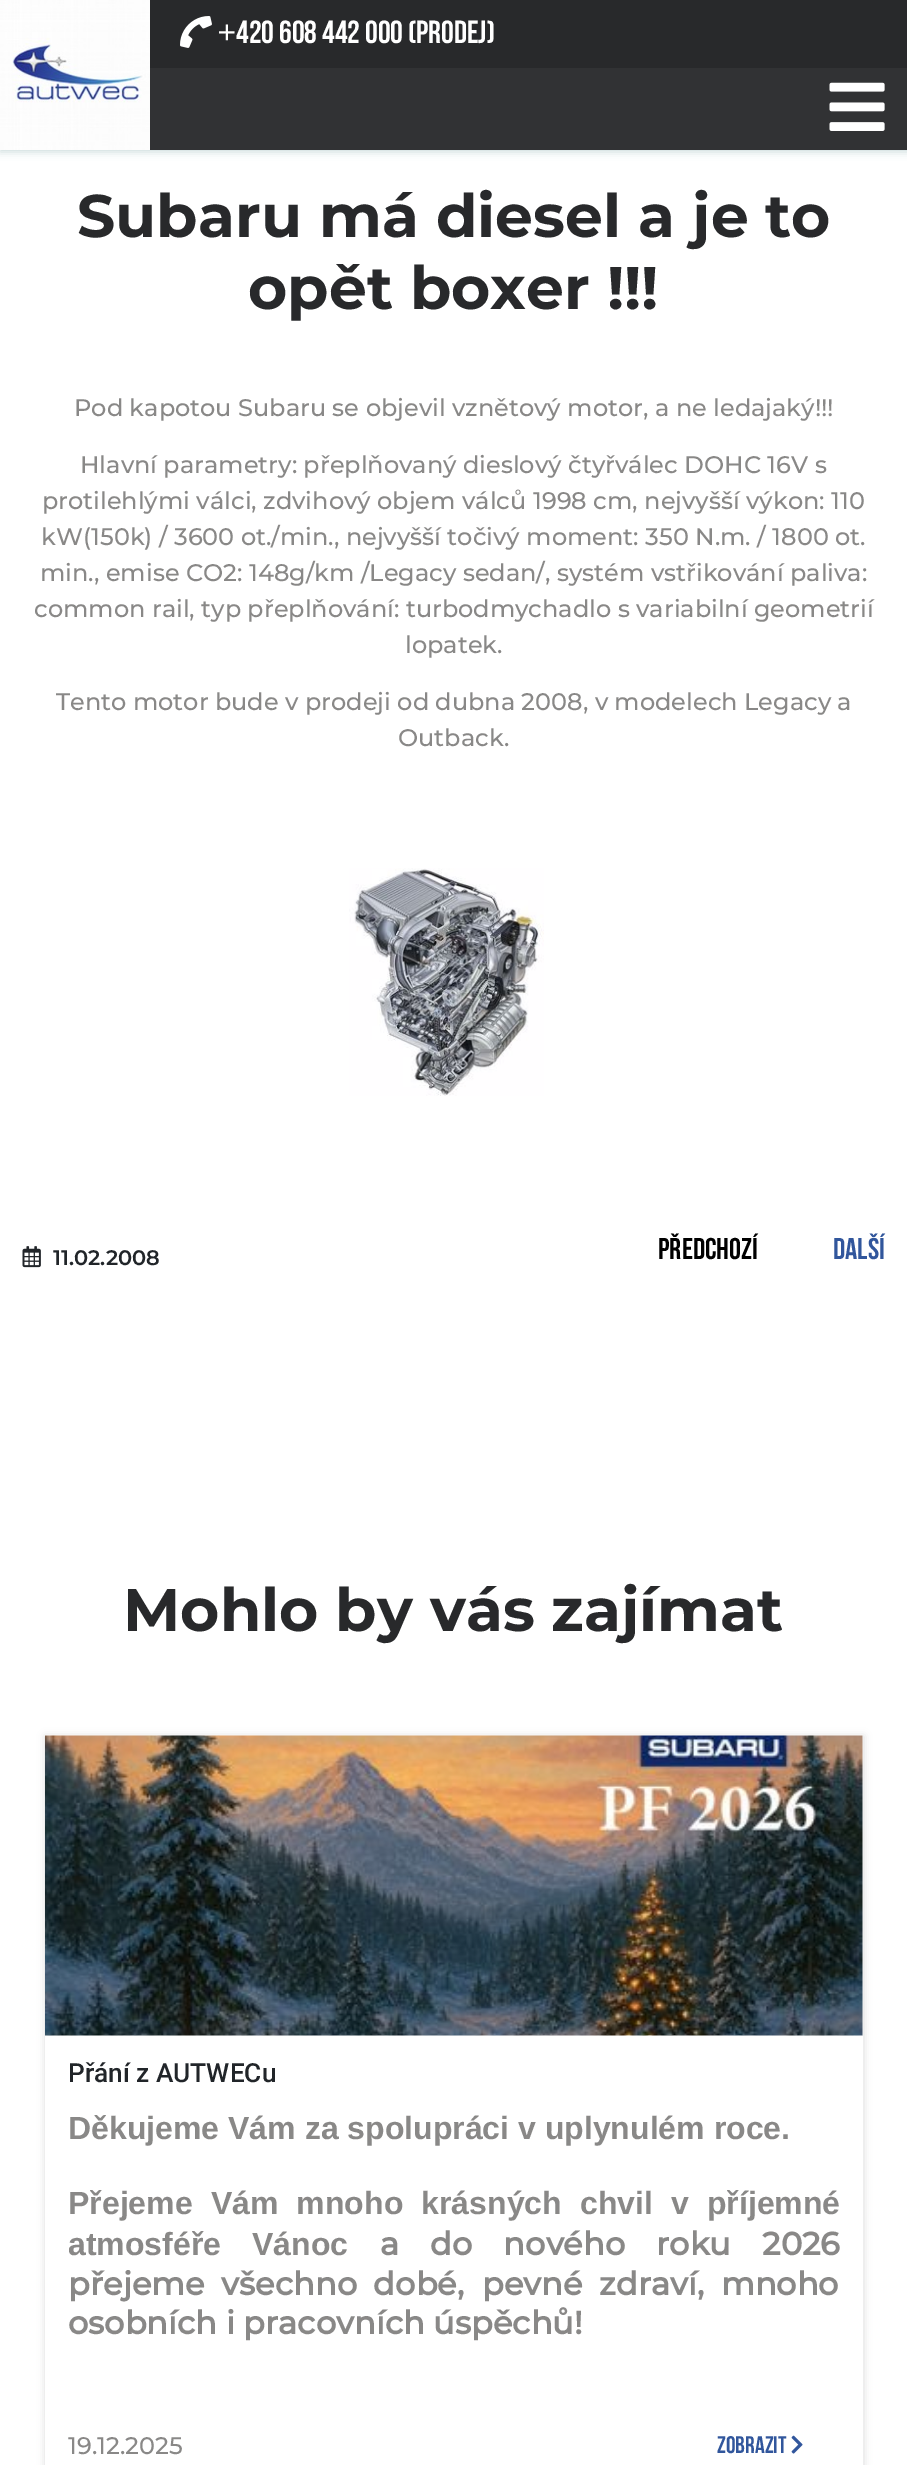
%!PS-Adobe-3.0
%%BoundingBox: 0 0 907 2465
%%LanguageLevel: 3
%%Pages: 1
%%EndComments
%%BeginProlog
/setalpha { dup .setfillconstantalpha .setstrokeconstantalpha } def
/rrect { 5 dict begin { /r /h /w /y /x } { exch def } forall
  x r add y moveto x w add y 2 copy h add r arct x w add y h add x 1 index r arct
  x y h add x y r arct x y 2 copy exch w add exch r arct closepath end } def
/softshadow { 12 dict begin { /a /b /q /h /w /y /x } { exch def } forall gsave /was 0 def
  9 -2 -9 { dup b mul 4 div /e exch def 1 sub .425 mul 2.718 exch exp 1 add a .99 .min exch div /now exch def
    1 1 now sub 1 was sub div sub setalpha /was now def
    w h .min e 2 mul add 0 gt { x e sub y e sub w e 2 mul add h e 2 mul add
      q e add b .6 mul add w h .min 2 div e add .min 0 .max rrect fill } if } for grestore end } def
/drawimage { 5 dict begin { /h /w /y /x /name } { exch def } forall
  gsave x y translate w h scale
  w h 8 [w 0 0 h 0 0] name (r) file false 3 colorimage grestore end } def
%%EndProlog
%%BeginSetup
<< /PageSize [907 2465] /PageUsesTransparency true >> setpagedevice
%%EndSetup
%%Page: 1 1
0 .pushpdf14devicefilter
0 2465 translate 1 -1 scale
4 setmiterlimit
1 setgray
0 0 907 2465 rectfill
0.8 0.863 0.863 setrgbcolor
0 0 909 152 0 4 1 softshadow
(images/1.raw) 0 0 150 150 drawimage
0.157 0.161 0.169 setrgbcolor
150 0 757 68 rectfill
(images/2.raw) 180 16 32 32 drawimage
0.192 0.196 0.204 setrgbcolor
150 68 757 82 rectfill
(images/3.raw) 829 82 56 49 drawimage
(images/4.raw) 349 868 195 228 drawimage
(images/5.raw) 22 1246 19 22 drawimage
gsave
newpath 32 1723 moveto 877 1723 lineto 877 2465 lineto 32 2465 lineto closepath 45 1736 moveto 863 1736 lineto 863 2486 lineto 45 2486 lineto closepath eoclip newpath
0.863 setgray
45 1736 819 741 0 4 1 softshadow
grestore
(images/6.raw) 45 1735 818 301 drawimage
(images/7.raw) 791 2435 12 19 drawimage
/LiberationSans-Italic [32 0 0 -32 0 0] selectfont
1 setgray
217 43 moveto (+) show
/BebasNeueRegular-Regular [32 0 0 -32 0 0] selectfont
236 43 moveto (420 608 442 000 \(prodej\)) show
/Montserrat-Bold [60 0 0 -60 0 0] selectfont
0.157 0.161 0.169 setrgbcolor
77 237 moveto (Subaru má diesel a je to) show
248 309 moveto (opět boxer !!!) show
/Montserrat-Medium [24 0 0 -24 0 0] selectfont
0.537 0.533 0.529 setrgbcolor
74 416 moveto (Pod kapotou Subaru se objevil vznětový motor, a ne ledajaký!!!) show
80 473 moveto (Hlavní parametry: přeplňovaný dieslový čtyřválec DOHC 16V s) show
42 509 moveto (protilehlými válci, zdvihový objem válců 1998 cm, nejvyšší výkon: 110) show
41 545 moveto (kW\(150k\) / 3600 ot./min., nejvyšší točivý moment: 350 N.m. / 1800 ot.) show
40 581 moveto (min., emise CO2: 148g/km /Legacy sedan/, systém vstřikování paliva:) show
34 617 moveto (common rail, typ přeplňování: turbodmychadlo s variabilní geometrií) show
405 653 moveto (lopatek.) show
56 710 moveto (Tento motor bude v prodeji od dubna 2008, v modelech Legacy a) show
398 746 moveto (Outback.) show
/Montserrat-SemiBold [21 0 0 -21 0 0] selectfont
0.129 0.145 0.161 setrgbcolor
53 1265 moveto (11.02.2008) show
/BebasNeue-Bold [30 0 0 -30 0 0] selectfont
0 setgray
658 1259 moveto (Předchozí) show
0.192 0.337 0.612 setrgbcolor
833 1259 moveto (Další) show
/Montserrat-Bold [60 0 0 -60 0 0] selectfont
0.157 0.161 0.169 setrgbcolor
123 1631 moveto (Mohlo by vás zajímat) show
/Roboto-Medium [26.25 0 0 -26.25 0 0] selectfont
0.129 0.145 0.161 setrgbcolor
68 2082 moveto (Přání z AUTWECu) show
/LiberationSans-Bold [32 0 0 -32 0 0] selectfont
0.537 0.533 0.529 setrgbcolor
68 2139 moveto (Děkujeme Vám za spolupráci v uplynulém roce.) show
68 2214 moveto 9.25 0 32 (Přejeme Vám mnoho krásných chvil v příjemné) widthshow
68 2255 moveto 22 0 32 (atmosféře Vánoc) widthshow
/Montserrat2-Bold [32 0 0 -32 0 0] selectfont
380 2255 moveto 22.5 0 32 (a do nového roku 2026) widthshow
68 2295 moveto 8 0 32 (přejeme všechno dobé,) widthshow
482 2295 moveto 8 0 32 (pevné zdraví, mnoho) widthshow
68 2334 moveto (osobních i pracovních úspěchů!) show
/Montserrat-Medium [24 0 0 -24 0 0] selectfont
68 2454 moveto (19.12.2025) show
/BebasNeueRegular-Regular [24 0 0 -24 0 0] selectfont
0.192 0.337 0.612 setrgbcolor
717 2453 moveto (zobrazit) show
.poppdf14devicefilter showpage
%%EOF
